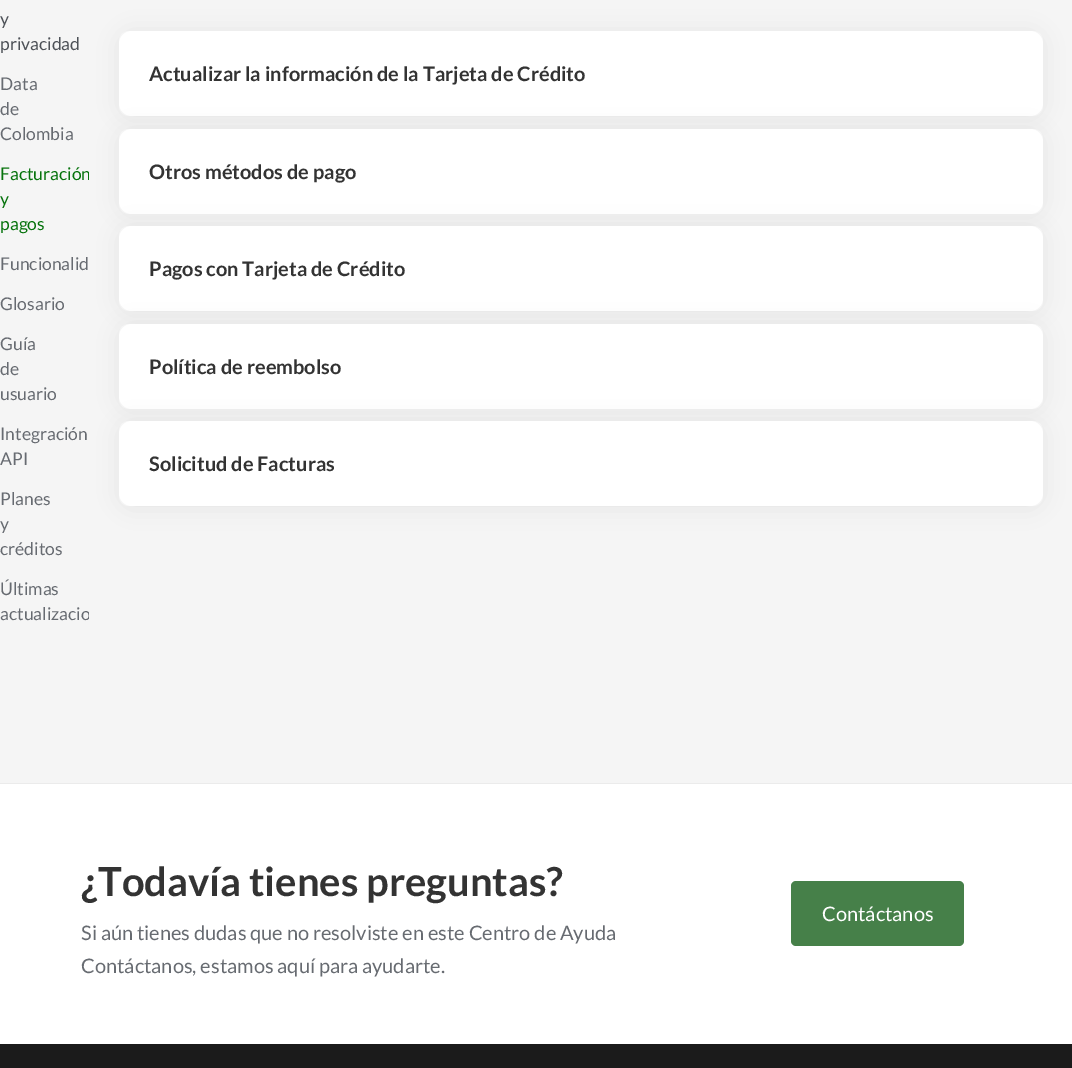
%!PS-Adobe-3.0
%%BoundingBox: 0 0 1072 1068
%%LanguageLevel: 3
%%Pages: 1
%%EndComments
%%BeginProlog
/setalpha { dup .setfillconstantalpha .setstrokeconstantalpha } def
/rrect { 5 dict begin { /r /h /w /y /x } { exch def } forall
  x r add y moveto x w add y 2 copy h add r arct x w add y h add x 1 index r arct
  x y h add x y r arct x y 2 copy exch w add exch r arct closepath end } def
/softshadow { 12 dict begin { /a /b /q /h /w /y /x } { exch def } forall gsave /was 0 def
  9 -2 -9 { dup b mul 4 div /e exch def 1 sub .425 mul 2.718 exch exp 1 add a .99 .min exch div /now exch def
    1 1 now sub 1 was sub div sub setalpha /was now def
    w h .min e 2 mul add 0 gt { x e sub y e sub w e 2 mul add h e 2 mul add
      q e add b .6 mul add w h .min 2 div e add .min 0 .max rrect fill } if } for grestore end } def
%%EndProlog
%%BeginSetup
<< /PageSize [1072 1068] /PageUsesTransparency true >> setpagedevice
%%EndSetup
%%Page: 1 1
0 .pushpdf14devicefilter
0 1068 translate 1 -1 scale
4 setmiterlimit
0.961 setgray
0 0 1072 1068 rectfill
1 setgray
119 31 924 85 10 rrect fill
0.875 setgray
123 36 916 78 9 12 1 softshadow
1 setgray
119 31 924 85 13 rrect fill
119 129 924 85 10 rrect fill
0.875 setgray
123 134 916 77 9 12 1 softshadow
1 setgray
119 129 924 85 13 rrect fill
119 226 924 85 10 rrect fill
0.875 setgray
123 231 916 78 9 12 1 softshadow
1 setgray
119 226 924 85 13 rrect fill
119 324 924 85 10 rrect fill
0.875 setgray
123 329 916 77 9 12 1 softshadow
1 setgray
119 324 924 85 13 rrect fill
119 421 924 85 10 rrect fill
0.875 setgray
123 426 916 78 9 12 1 softshadow
1 setgray
119 421 924 85 13 rrect fill
0 784 1072 260 rectfill
0.922 setgray
0 783 1072 1 rectfill
0.275 0.502 0.286 setrgbcolor
791 881 173 65 5 rrect fill
0.106 setgray
0 1044 1072 24 rectfill
/Lato-Regular [17.5 0 0 -17.5 0 0] selectfont
0.302 0.318 0.341 setrgbcolor
0 25 moveto (y) show
0 50 moveto (privacidad) show
0.404 0.42 0.443 setrgbcolor
0 90 moveto (Data) show
0 115 moveto (de) show
0 140 moveto (Colombia) show
gsave
0 0 89 641 rectclip
0.027 0.451 0.051 setrgbcolor
0 180 moveto (Facturación) show
grestore
0.027 0.451 0.051 setrgbcolor
0 205 moveto (y) show
0 230 moveto (pagos) show
0.404 0.42 0.443 setrgbcolor
0 270 moveto (Funcionalid) show
0 310 moveto (Glosario) show
0 350 moveto (Guía) show
0 375 moveto (de) show
0 400 moveto (usuario) show
0 440 moveto (Integración) show
0 465 moveto (API) show
0 505 moveto (Planes) show
0 530 moveto (y) show
0 555 moveto (créditos) show
0 595 moveto (Últimas) show
gsave
0 0 89 641 rectclip
0 620 moveto (actualizacio) show
grestore
/Lato-Bold [20 0 0 -20 0 0] selectfont
0.2 setgray
149 81 moveto (Actualizar la información de la Tarjeta de Crédito) show
149 179 moveto (Otros métodos de pago) show
149 276 moveto (Pagos con Tarjeta de Crédito) show
149 374 moveto (Política de reembolso) show
149 471 moveto (Solicitud de Facturas) show
/Lato-Bold [40 0 0 -40 0 0] selectfont
81 896 moveto (¿Todavía tienes preguntas?) show
/Lato-Regular [20 0 0 -20 0 0] selectfont
0.404 0.42 0.443 setrgbcolor
81 940 moveto (Si aún tienes dudas que no resolviste en este Centro de Ayuda) show
81 973 moveto (Contáctanos, estamos aquí para ayudarte.) show
1 setgray
822 921 moveto (Contáctanos) show
.poppdf14devicefilter showpage
%%EOF
